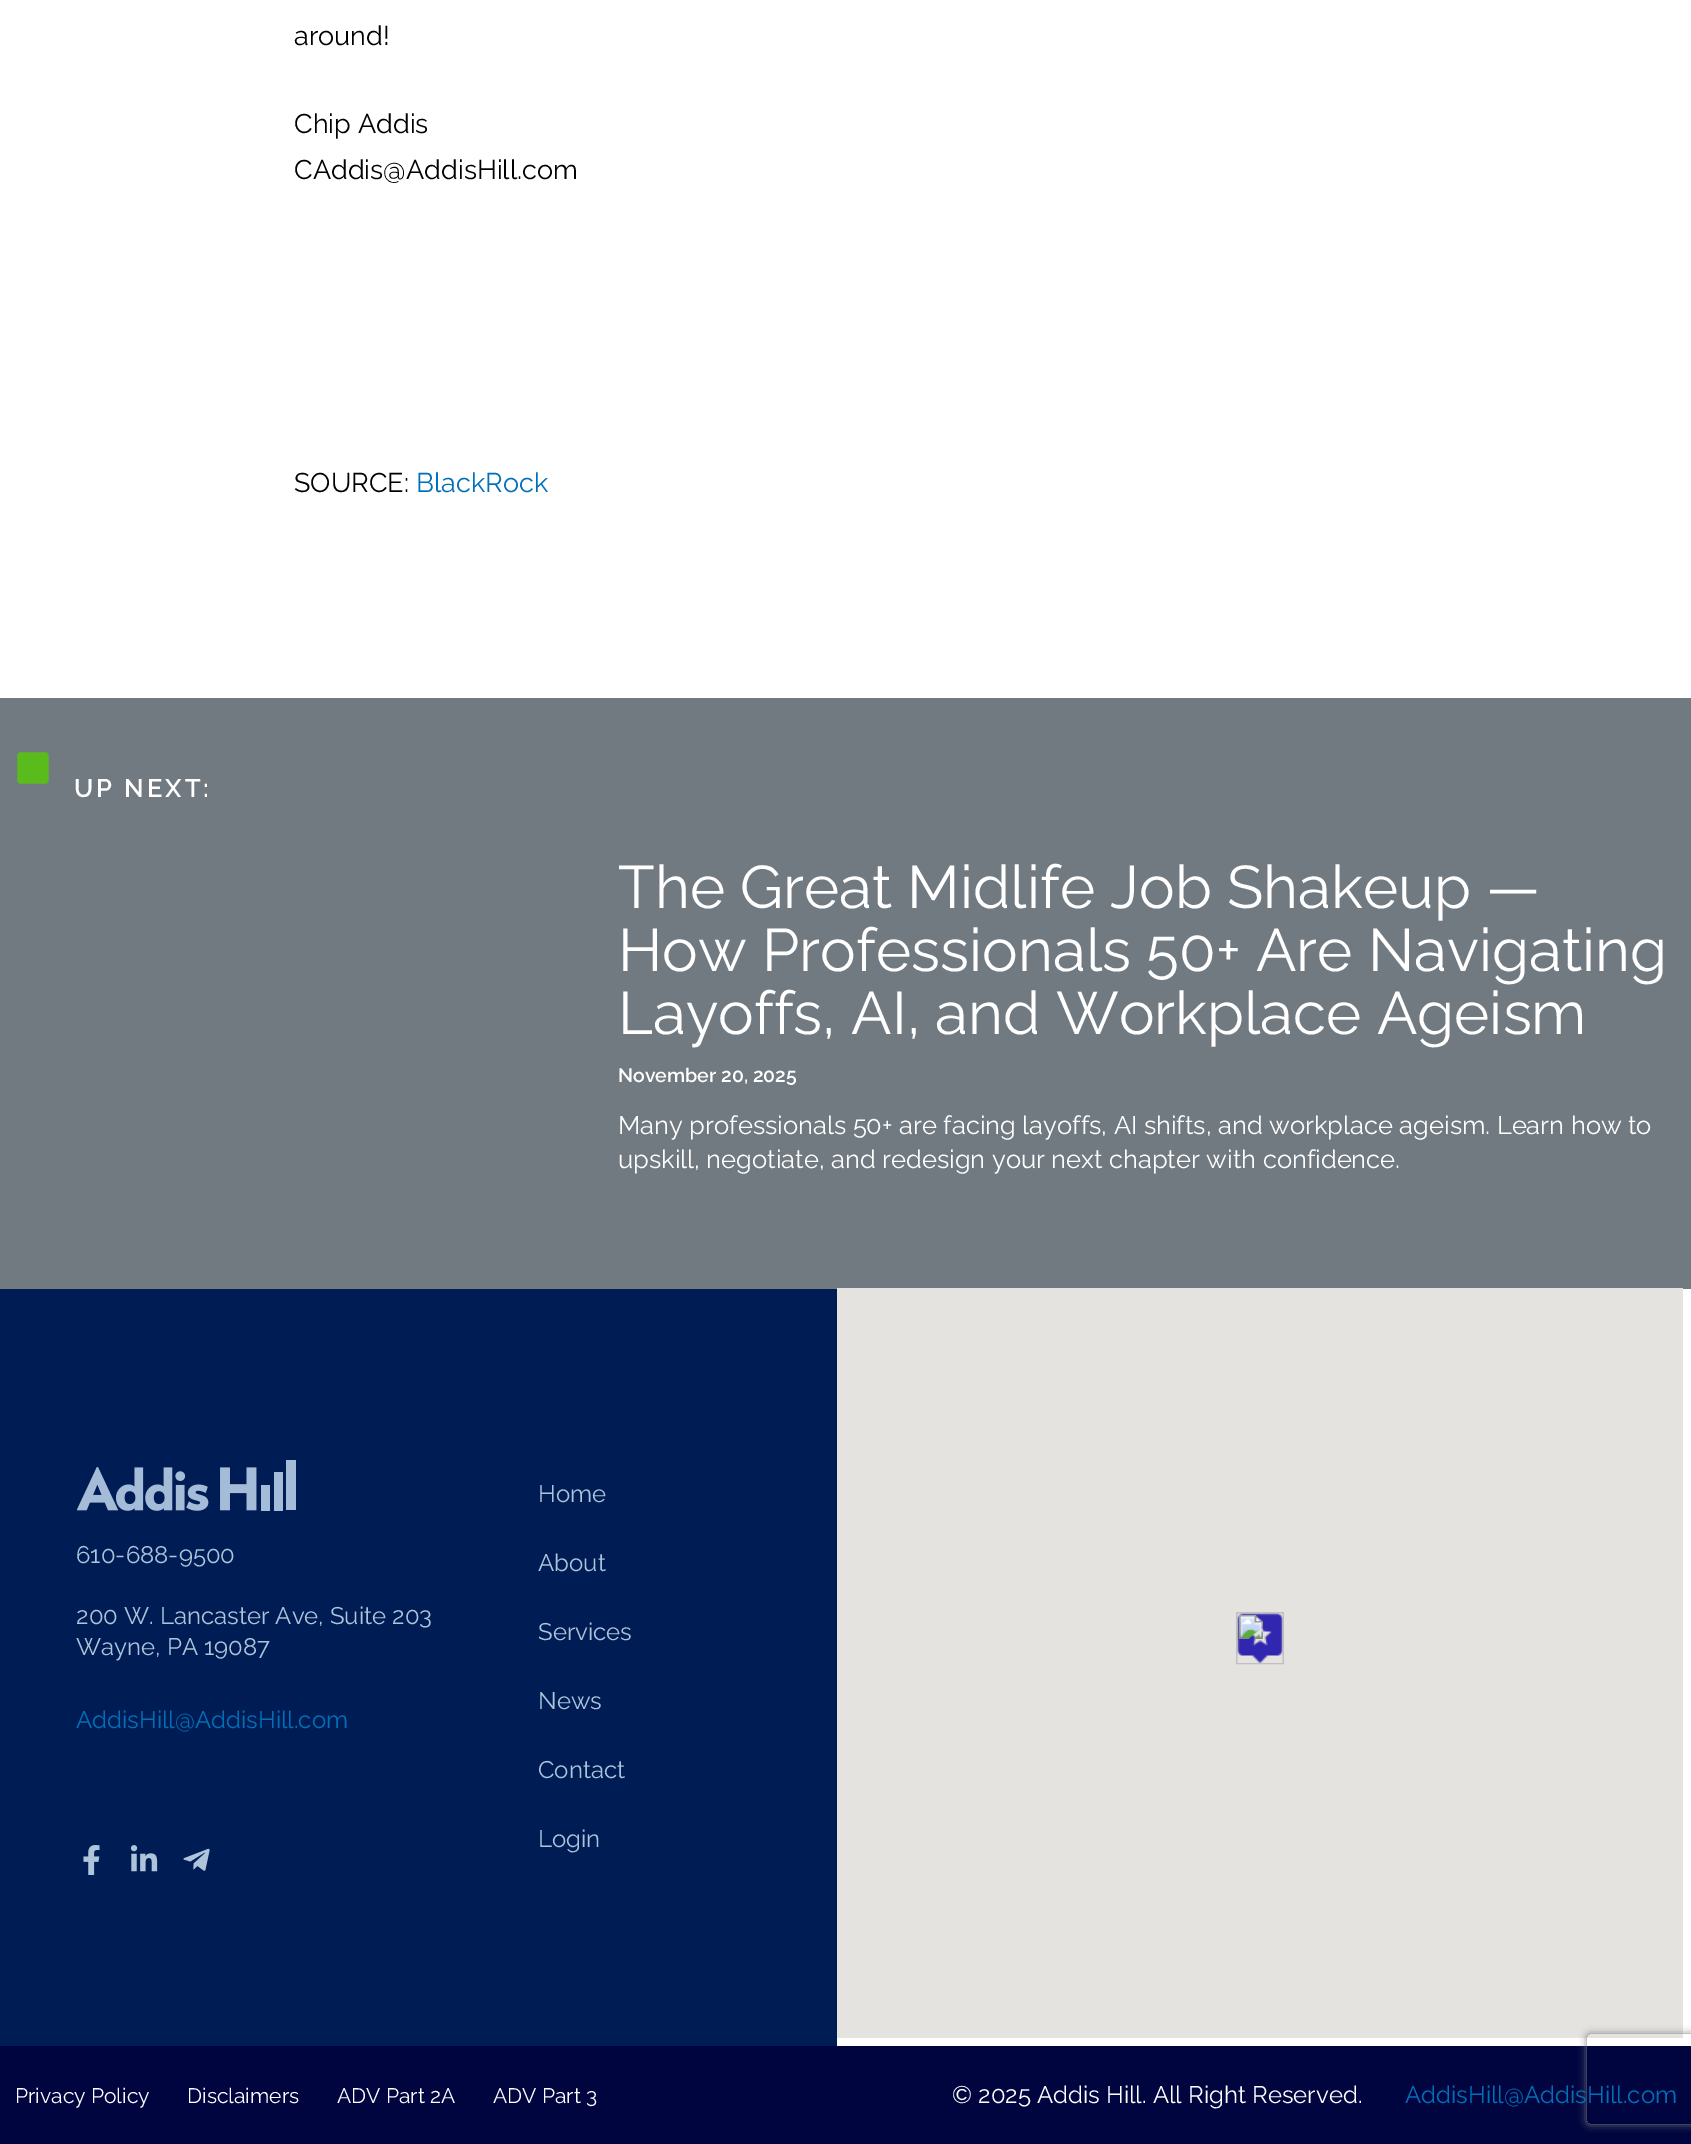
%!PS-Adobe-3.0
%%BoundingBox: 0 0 1691 2144
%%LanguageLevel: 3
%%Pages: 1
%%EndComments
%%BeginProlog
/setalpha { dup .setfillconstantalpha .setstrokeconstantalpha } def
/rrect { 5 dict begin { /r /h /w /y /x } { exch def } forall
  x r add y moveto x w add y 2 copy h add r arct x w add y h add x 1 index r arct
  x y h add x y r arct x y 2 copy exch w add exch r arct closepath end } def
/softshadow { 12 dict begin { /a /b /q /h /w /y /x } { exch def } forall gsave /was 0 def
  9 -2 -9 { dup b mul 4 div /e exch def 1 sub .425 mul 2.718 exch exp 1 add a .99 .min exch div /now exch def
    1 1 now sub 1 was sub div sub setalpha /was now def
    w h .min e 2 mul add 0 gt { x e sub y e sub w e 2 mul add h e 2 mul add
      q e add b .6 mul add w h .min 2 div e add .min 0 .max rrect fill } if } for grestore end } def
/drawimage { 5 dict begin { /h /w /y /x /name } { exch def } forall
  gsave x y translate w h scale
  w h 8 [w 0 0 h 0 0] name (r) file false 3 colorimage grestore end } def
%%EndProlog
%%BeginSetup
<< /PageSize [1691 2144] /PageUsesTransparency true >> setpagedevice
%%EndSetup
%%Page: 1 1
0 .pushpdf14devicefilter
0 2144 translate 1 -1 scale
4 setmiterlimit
1 setgray
0 0 1691 2144 rectfill
0.443 0.478 0.506 setrgbcolor
0 698 1691 591 rectfill
(images/1.raw) 17 752 32 32 drawimage
0 0.11 0.333 setrgbcolor
0 1289 837 757 rectfill
(images/2.raw) 77 1460 219 51 drawimage
(images/3.raw) 83 1845 17 30 drawimage
(images/4.raw) 130 1845 28 27 drawimage
(images/5.raw) 183 1848 27 23 drawimage
(images/6.raw) 837 1288 846 750 drawimage
0 0.02 0.251 setrgbcolor
0 2046 1691 98 rectfill
gsave
newpath 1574 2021 moveto 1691 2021 lineto 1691 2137 lineto 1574 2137 lineto closepath 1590 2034 moveto 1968 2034 lineto 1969.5 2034 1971 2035.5 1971 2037 curveto 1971 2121 lineto 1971 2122.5 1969.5 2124 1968 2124 curveto 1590 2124 lineto 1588.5 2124 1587 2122.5 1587 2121 curveto 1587 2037 lineto 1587 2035.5 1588.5 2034 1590 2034 curveto closepath eoclip newpath
0.502 setgray
1587 2034 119 90 3 4 1 softshadow
grestore
/Raleway-Regular [27 0 0 -27 0 0] selectfont
0 setgray
294 45 moveto (around!) show
294 133 moveto (Chip Addis) show
294 179 moveto (CAddis@AddisHill.com) show
294 492 moveto (SOURCE:) show
0.004 0.439 0.725 setrgbcolor
416 492 moveto (BlackRock) show
/Raleway-SemiBold [25.5 0 0 -25.5 0 0] selectfont
1 setgray
74 797 moveto 3 0 (UP NEXT:) ashow
/Raleway-Regular [60 0 0 -60 0 0] selectfont
618 908 moveto (The Great Midlife Job Shakeup —) show
618 971 moveto (How Professionals 50+ Are Navigating) show
618 1034 moveto (Layoffs, AI, and Workplace Ageism) show
/Raleway-SemiBold [19.5 0 0 -19.5 0 0] selectfont
618 1082 moveto (November 20, 2025) show
/Raleway-Regular [25.5 0 0 -25.5 0 0] selectfont
618 1134 moveto (Many professionals 50+ are facing layoffs, AI shifts, and workplace ageism. Learn how to) show
618 1168 moveto (upskill, negotiate, and redesign your next chapter with confidence.) show
/Raleway-Regular [24 0 0 -24 0 0] selectfont
0.678 0.769 0.855 setrgbcolor
76 1563 moveto (610-688-9500) show
76 1624 moveto (200 W. Lancaster Ave, Suite 203) show
76 1655 moveto (Wayne, PA 19087) show
0.004 0.439 0.725 setrgbcolor
76 1728 moveto (AddisHill@AddisHill.com) show
0.678 0.769 0.855 setrgbcolor
538 1502 moveto (Home) show
538 1571 moveto (About) show
538 1640 moveto (Services) show
538 1709 moveto (News) show
538 1778 moveto (Contact) show
538 1847 moveto (Login) show
/Raleway-Regular [21 0 0 -21 0 0] selectfont
1 setgray
15 2103 moveto (Privacy Policy) show
187 2103 moveto (Disclaimers) show
337 2103 moveto (ADV Part 2A) show
493 2103 moveto (ADV Part 3) show
/Raleway-Regular [24 0 0 -24 0 0] selectfont
952 2103 moveto (© 2025 Addis Hill. All Right Reserved.) show
0.004 0.439 0.725 setrgbcolor
1405 2103 moveto (AddisHill@AddisHill.com) show
.poppdf14devicefilter showpage
%%EOF
